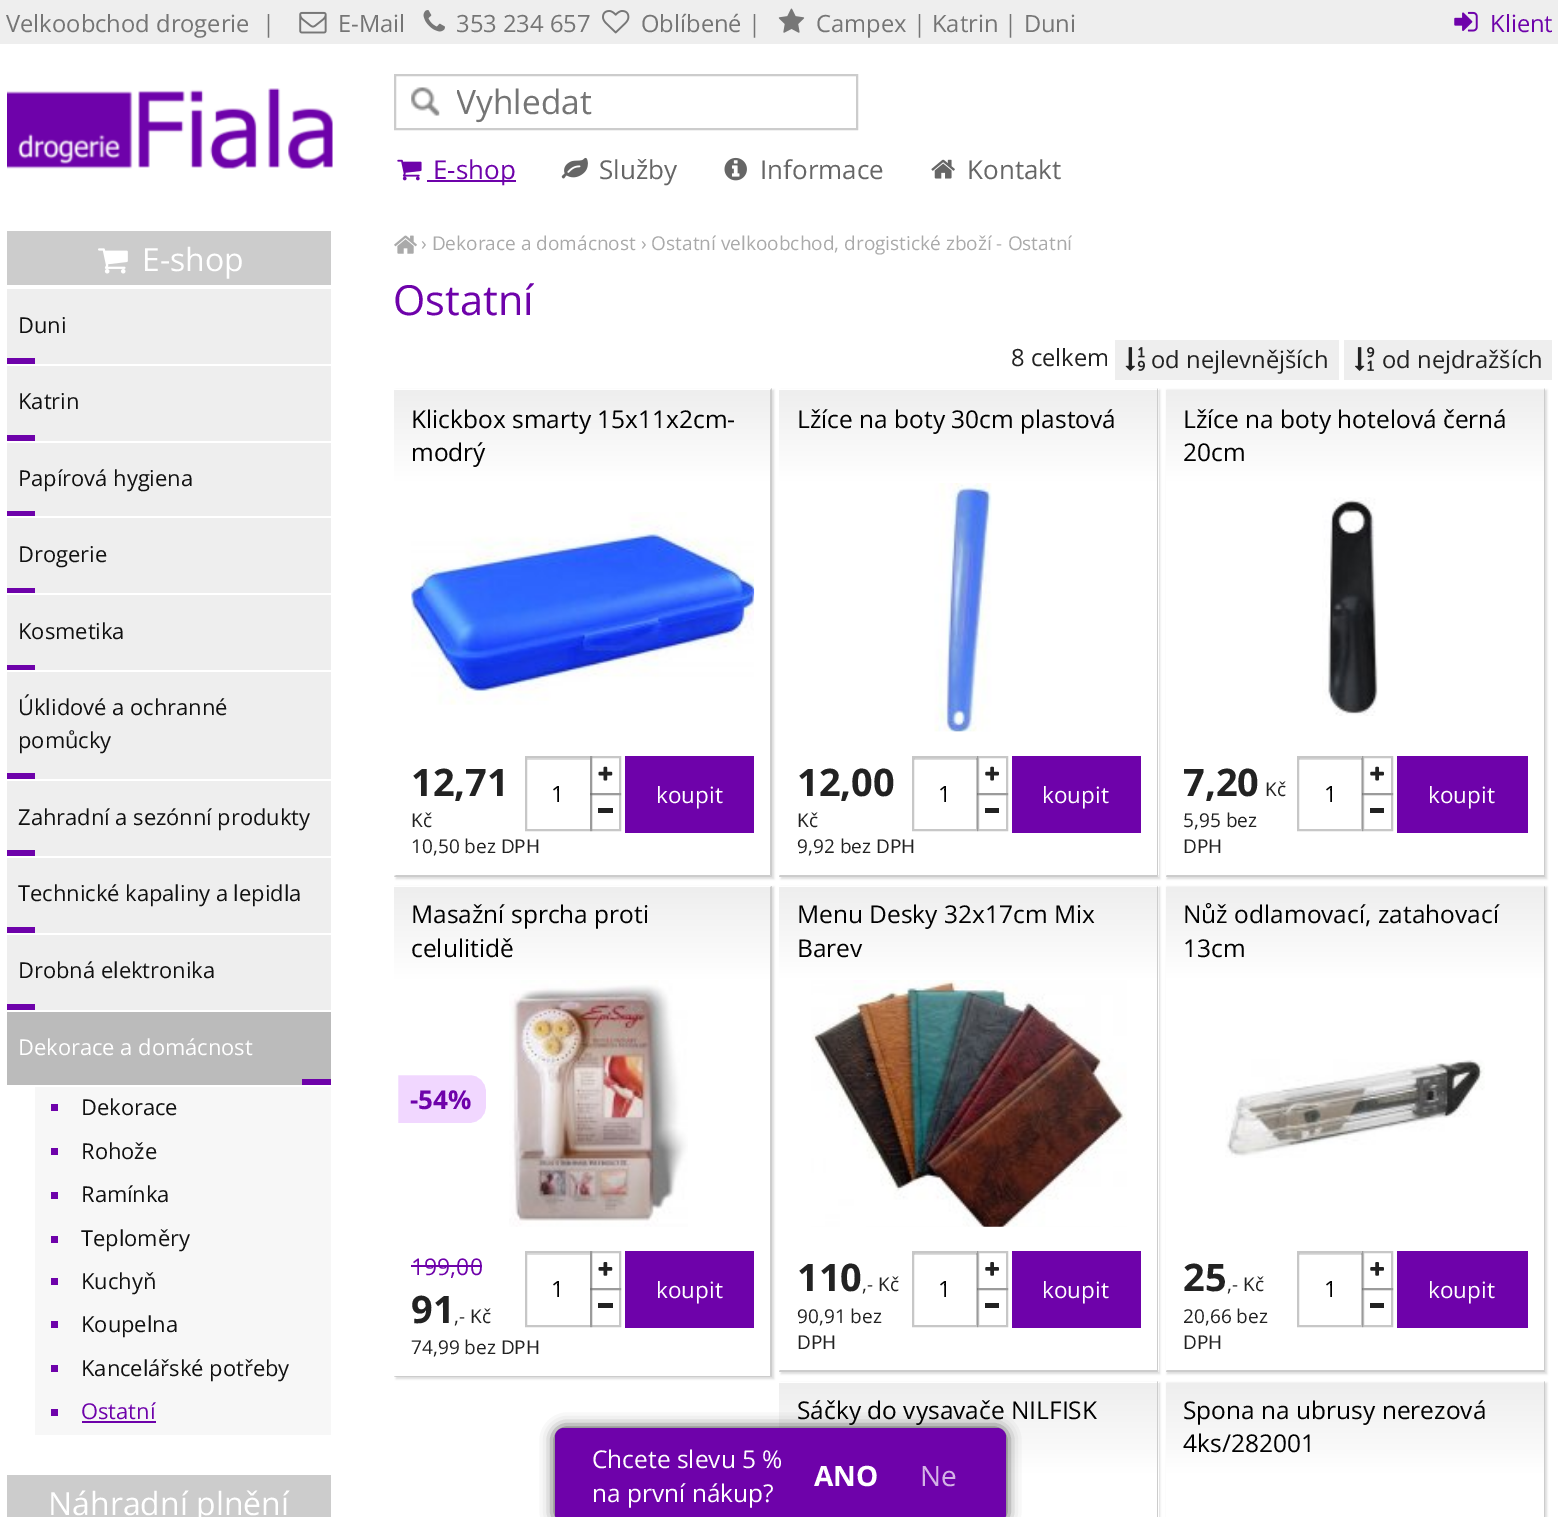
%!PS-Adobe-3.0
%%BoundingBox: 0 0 1558 1517
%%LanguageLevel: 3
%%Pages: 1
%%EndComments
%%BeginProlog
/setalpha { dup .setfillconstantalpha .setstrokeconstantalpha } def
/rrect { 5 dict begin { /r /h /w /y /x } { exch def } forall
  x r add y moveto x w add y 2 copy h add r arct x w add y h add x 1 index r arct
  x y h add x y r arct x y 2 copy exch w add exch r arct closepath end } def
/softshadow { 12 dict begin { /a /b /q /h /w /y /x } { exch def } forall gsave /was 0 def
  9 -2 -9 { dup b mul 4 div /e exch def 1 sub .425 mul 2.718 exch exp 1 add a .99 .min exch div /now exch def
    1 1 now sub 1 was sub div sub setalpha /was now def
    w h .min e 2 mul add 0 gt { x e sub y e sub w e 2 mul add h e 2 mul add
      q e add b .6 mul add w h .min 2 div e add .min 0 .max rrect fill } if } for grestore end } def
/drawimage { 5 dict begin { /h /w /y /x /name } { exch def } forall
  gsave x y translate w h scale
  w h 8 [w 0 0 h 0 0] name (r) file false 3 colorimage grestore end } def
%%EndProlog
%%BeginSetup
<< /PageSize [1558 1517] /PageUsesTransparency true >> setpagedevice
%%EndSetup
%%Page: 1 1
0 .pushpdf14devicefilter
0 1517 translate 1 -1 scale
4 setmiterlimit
1 setgray
0 0 1558 1517 rectfill
0.933 setgray
0 0 1558 44 rectfill
(images/1.raw) 299 11 28 23 drawimage
(images/2.raw) 423 10 22 22 drawimage
(images/3.raw) 602 10 28 24 drawimage
(images/4.raw) 778 8 27 25 drawimage
(images/5.raw) 1454 11 24 21 drawimage
(images/6.raw) 7 88 326 81 drawimage
(images/7.raw) 411 87 29 29 drawimage
0.8 setgray
2 setlinewidth
395 75 462 54 rectstroke
(images/8.raw) 397 159 25 22 drawimage
0.431 0.008 0.667 setrgbcolor
427 180 89 2 rectfill
(images/9.raw) 561 157 27 22 drawimage
(images/10.raw) 724 157 23 24 drawimage
(images/11.raw) 931 159 24 20 drawimage
0.8 setgray
7 231 324 54 rectfill
(images/12.raw) 98 248 30 26 drawimage
0.933 setgray
7 289 324 75 rectfill
0.431 0.008 0.667 setrgbcolor
7 358 28 6 rectfill
0.933 setgray
7 366 324 75 rectfill
0.431 0.008 0.667 setrgbcolor
7 435 28 6 rectfill
0.933 setgray
7 443 324 73 rectfill
0.431 0.008 0.667 setrgbcolor
7 511 28 5 rectfill
0.933 setgray
7 518 324 75 rectfill
0.431 0.008 0.667 setrgbcolor
7 588 28 5 rectfill
0.933 setgray
7 595 324 75 rectfill
0.431 0.008 0.667 setrgbcolor
7 665 28 5 rectfill
0.933 setgray
7 672 324 107 rectfill
0.431 0.008 0.667 setrgbcolor
7 773 28 6 rectfill
0.933 setgray
7 781 324 75 rectfill
0.431 0.008 0.667 setrgbcolor
7 850 28 6 rectfill
0.933 setgray
7 858 324 75 rectfill
0.431 0.008 0.667 setrgbcolor
7 927 28 6 rectfill
0.933 setgray
7 935 324 75 rectfill
0.431 0.008 0.667 setrgbcolor
7 1004 28 6 rectfill
0.733 setgray
7 1012 324 73 rectfill
0.431 0.008 0.663 setrgbcolor
302 1079 29 6 rectfill
0.969 setgray
35 1087 296 348 rectfill
0.431 0.008 0.667 setrgbcolor
51 1104 7 7 rectfill
51 1148 7 7 rectfill
51 1192 7 7 rectfill
51 1236 7 7 rectfill
51 1278 7 7 rectfill
51 1321 7 7 rectfill
51 1365 7 7 rectfill
51 1409 7 7 rectfill
82 1421 74 2 rectfill
0.8 setgray
7 1475 324 42 rectfill
(images/13.raw) 394 235 23 19 drawimage
0.933 setgray
1115 340 224 40 rectfill
(images/14.raw) 1125 347 20 24 drawimage
1344 340 208 40 rectfill
(images/15.raw) 1354 347 21 24 drawimage
0.867 setgray
396 390 378 489 0 1 1 softshadow
gsave newpath 394 389 moveto 772 389 lineto 772 390 lineto 394 390 lineto closepath clip newpath
<< /ShadingType 2 /ColorSpace /DeviceRGB /Coords [583 -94 583 390] /Extend [true true] /Function << /FunctionType 3 /Domain [0 1] /Functions [<< /FunctionType 2 /Domain [0 1] /C0 [0.933 0.933 0.933] /C1 [1 1 1] /N 1 >> << /FunctionType 2 /Domain [0 1] /C0 [1 1 1] /C1 [1 1 1] /N 1 >>] /Bounds [0.19] /Encode [0 1 0 1] >> >> shfill grestore
gsave newpath 394 390 moveto 770 390 lineto 770 875 lineto 394 875 lineto closepath clip newpath
<< /ShadingType 2 /ColorSpace /DeviceRGB /Coords [583 390 583 875] /Extend [true true] /Function << /FunctionType 3 /Domain [0 1] /Functions [<< /FunctionType 2 /Domain [0 1] /C0 [0.933 0.933 0.933] /C1 [1 1 1] /N 1 >> << /FunctionType 2 /Domain [0 1] /C0 [1 1 1] /C1 [1 1 1] /N 1 >>] /Bounds [0.19] /Encode [0 1 0 1] >> >> shfill grestore
gsave newpath 394 875 moveto 772 875 lineto 772 877 lineto 394 877 lineto closepath clip newpath
<< /ShadingType 2 /ColorSpace /DeviceRGB /Coords [583 875 583 1360] /Extend [true true] /Function << /FunctionType 3 /Domain [0 1] /Functions [<< /FunctionType 2 /Domain [0 1] /C0 [0.933 0.933 0.933] /C1 [1 1 1] /N 1 >> << /FunctionType 2 /Domain [0 1] /C0 [1 1 1] /C1 [1 1 1] /N 1 >>] /Bounds [0.19] /Encode [0 1 0 1] >> >> shfill grestore
0.8 setgray
newpath 772 388 moveto 772 877 lineto 770 875 lineto 770 390 lineto closepath fill
newpath 772 877 moveto 394 877 lineto 396 875 lineto 770 875 lineto closepath fill
(images/16.raw) 411 512 344 193 drawimage
0.867 setgray
527 758 63 2 rectfill
0.78 setgray
526 757 65 73 rectstroke
0.22 setalpha
0 setgray
591 757 29 37 rectstroke
1 setalpha
(images/17.raw) 598 766 15 15 drawimage
0.22 setalpha
591 794 29 36 rectstroke
1 setalpha
0.133 setgray
598 808 15 5 rectfill
0.431 0.008 0.667 setrgbcolor
625 756 129 77 rectfill
0.867 setgray
781 390 379 489 0 1 1 softshadow
gsave newpath 779 389 moveto 1159 389 lineto 1159 390 lineto 779 390 lineto closepath clip newpath
<< /ShadingType 2 /ColorSpace /DeviceRGB /Coords [969 -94 969 390] /Extend [true true] /Function << /FunctionType 3 /Domain [0 1] /Functions [<< /FunctionType 2 /Domain [0 1] /C0 [0.933 0.933 0.933] /C1 [1 1 1] /N 1 >> << /FunctionType 2 /Domain [0 1] /C0 [1 1 1] /C1 [1 1 1] /N 1 >>] /Bounds [0.19] /Encode [0 1 0 1] >> >> shfill grestore
gsave newpath 779 390 moveto 1159 390 lineto 1159 875 lineto 779 875 lineto closepath clip newpath
<< /ShadingType 2 /ColorSpace /DeviceRGB /Coords [969 390 969 875] /Extend [true true] /Function << /FunctionType 3 /Domain [0 1] /Functions [<< /FunctionType 2 /Domain [0 1] /C0 [0.933 0.933 0.933] /C1 [1 1 1] /N 1 >> << /FunctionType 2 /Domain [0 1] /C0 [1 1 1] /C1 [1 1 1] /N 1 >>] /Bounds [0.19] /Encode [0 1 0 1] >> >> shfill grestore
gsave newpath 779 875 moveto 1159 875 lineto 1159 877 lineto 779 877 lineto closepath clip newpath
<< /ShadingType 2 /ColorSpace /DeviceRGB /Coords [969 875 969 1360] /Extend [true true] /Function << /FunctionType 3 /Domain [0 1] /Functions [<< /FunctionType 2 /Domain [0 1] /C0 [0.933 0.933 0.933] /C1 [1 1 1] /N 1 >> << /FunctionType 2 /Domain [0 1] /C0 [1 1 1] /C1 [1 1 1] /N 1 >>] /Bounds [0.19] /Encode [0 1 0 1] >> >> shfill grestore
0.8 setgray
newpath 1158 388 moveto 1158 877 lineto 1157 875 lineto 1157 390 lineto closepath fill
newpath 1158 877 moveto 779 877 lineto 780 875 lineto 1157 875 lineto closepath fill
(images/18.raw) 934 483 58 249 drawimage
0.867 setgray
914 758 63 2 rectfill
0.22 setalpha
0 setgray
913 757 64 73 rectstroke
978 757 29 37 rectstroke
1 setalpha
(images/19.raw) 985 766 14 15 drawimage
0.22 setalpha
978 794 29 36 rectstroke
1 setalpha
0.133 setgray
985 808 14 5 rectfill
0.431 0.008 0.667 setrgbcolor
1012 756 129 77 rectfill
0.867 setgray
1167 390 380 489 0 1 1 softshadow
gsave newpath 1166 390 moveto 1544 390 lineto 1544 875 lineto 1166 875 lineto closepath clip newpath
<< /ShadingType 2 /ColorSpace /DeviceRGB /Coords [1355 390 1355 875] /Extend [true true] /Function << /FunctionType 3 /Domain [0 1] /Functions [<< /FunctionType 2 /Domain [0 1] /C0 [0.933 0.933 0.933] /C1 [1 1 1] /N 1 >> << /FunctionType 2 /Domain [0 1] /C0 [1 1 1] /C1 [1 1 1] /N 1 >>] /Bounds [0.19] /Encode [0 1 0 1] >> >> shfill grestore
gsave newpath 1166 875 moveto 1545 875 lineto 1545 877 lineto 1166 877 lineto closepath clip newpath
<< /ShadingType 2 /ColorSpace /DeviceRGB /Coords [1355 875 1355 1360] /Extend [true true] /Function << /FunctionType 3 /Domain [0 1] /Functions [<< /FunctionType 2 /Domain [0 1] /C0 [0.933 0.933 0.933] /C1 [1 1 1] /N 1 >> << /FunctionType 2 /Domain [0 1] /C0 [1 1 1] /C1 [1 1 1] /N 1 >>] /Bounds [0.19] /Encode [0 1 0 1] >> >> shfill grestore
0.8 setgray
newpath 1545 388 moveto 1545 877 lineto 1544 875 lineto 1544 390 lineto closepath fill
newpath 1545 877 moveto 1166 877 lineto 1167 875 lineto 1544 875 lineto closepath fill
(images/20.raw) 1322 497 56 219 drawimage
0.867 setgray
1299 758 63 2 rectfill
0.22 setalpha
0 setgray
1298 757 64 73 rectstroke
1363 757 29 37 rectstroke
1 setalpha
(images/19.raw) 1370 766 14 15 drawimage
0.22 setalpha
1363 794 29 36 rectstroke
1 setalpha
0.133 setgray
1370 808 14 5 rectfill
0.431 0.008 0.667 setrgbcolor
1397 756 131 77 rectfill
0.867 setgray
396 887 378 492 0 1 1 softshadow
gsave newpath 394 886 moveto 772 886 lineto 772 887 lineto 394 887 lineto closepath clip newpath
<< /ShadingType 2 /ColorSpace /DeviceRGB /Coords [583 399 583 887] /Extend [true true] /Function << /FunctionType 3 /Domain [0 1] /Functions [<< /FunctionType 2 /Domain [0 1] /C0 [0.933 0.933 0.933] /C1 [1 1 1] /N 1 >> << /FunctionType 2 /Domain [0 1] /C0 [1 1 1] /C1 [1 1 1] /N 1 >>] /Bounds [0.19] /Encode [0 1 0 1] >> >> shfill grestore
gsave newpath 394 887 moveto 770 887 lineto 770 1376 lineto 394 1376 lineto closepath clip newpath
<< /ShadingType 2 /ColorSpace /DeviceRGB /Coords [583 887 583 1376] /Extend [true true] /Function << /FunctionType 3 /Domain [0 1] /Functions [<< /FunctionType 2 /Domain [0 1] /C0 [0.933 0.933 0.933] /C1 [1 1 1] /N 1 >> << /FunctionType 2 /Domain [0 1] /C0 [1 1 1] /C1 [1 1 1] /N 1 >>] /Bounds [0.19] /Encode [0 1 0 1] >> >> shfill grestore
gsave newpath 394 1376 moveto 772 1376 lineto 772 1377 lineto 394 1377 lineto closepath clip newpath
<< /ShadingType 2 /ColorSpace /DeviceRGB /Coords [583 1376 583 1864] /Extend [true true] /Function << /FunctionType 3 /Domain [0 1] /Functions [<< /FunctionType 2 /Domain [0 1] /C0 [0.933 0.933 0.933] /C1 [1 1 1] /N 1 >> << /FunctionType 2 /Domain [0 1] /C0 [1 1 1] /C1 [1 1 1] /N 1 >>] /Bounds [0.19] /Encode [0 1 0 1] >> >> shfill grestore
0.8 setgray
newpath 772 886 moveto 772 1377 lineto 770 1376 lineto 770 887 lineto closepath fill
newpath 772 1377 moveto 394 1377 lineto 396 1376 lineto 770 1376 lineto closepath fill
(images/21.raw) 509 980 179 247 drawimage
0.945 0.843 1 setrgbcolor
newpath 397 1074 moveto 470 1074 lineto 479.5 1074 487 1081.5 487 1091 curveto 487 1107 lineto 487 1116.5 479.5 1124 470 1124 curveto 397 1124 lineto closepath gsave fill grestore
1 setgray
stroke
0.431 0.008 0.667 setrgbcolor
411 1265 70 2 rectfill
0.867 setgray
527 1253 63 2 rectfill
0.78 setgray
526 1252 65 74 rectstroke
0.22 setalpha
0 setgray
591 1252 29 37 rectstroke
1 setalpha
(images/22.raw) 598 1262 15 14 drawimage
0.22 setalpha
591 1289 29 37 rectstroke
1 setalpha
0.133 setgray
598 1303 15 5 rectfill
0.431 0.008 0.667 setrgbcolor
625 1251 129 77 rectfill
0.867 setgray
781 887 379 487 0 1 1 softshadow
gsave newpath 779 886 moveto 1159 886 lineto 1159 887 lineto 779 887 lineto closepath clip newpath
<< /ShadingType 2 /ColorSpace /DeviceRGB /Coords [969 404 969 887] /Extend [true true] /Function << /FunctionType 3 /Domain [0 1] /Functions [<< /FunctionType 2 /Domain [0 1] /C0 [0.933 0.933 0.933] /C1 [1 1 1] /N 1 >> << /FunctionType 2 /Domain [0 1] /C0 [1 1 1] /C1 [1 1 1] /N 1 >>] /Bounds [0.19] /Encode [0 1 0 1] >> >> shfill grestore
gsave newpath 779 887 moveto 1159 887 lineto 1159 1370 lineto 779 1370 lineto closepath clip newpath
<< /ShadingType 2 /ColorSpace /DeviceRGB /Coords [969 887 969 1370] /Extend [true true] /Function << /FunctionType 3 /Domain [0 1] /Functions [<< /FunctionType 2 /Domain [0 1] /C0 [0.933 0.933 0.933] /C1 [1 1 1] /N 1 >> << /FunctionType 2 /Domain [0 1] /C0 [1 1 1] /C1 [1 1 1] /N 1 >>] /Bounds [0.19] /Encode [0 1 0 1] >> >> shfill grestore
gsave newpath 779 1370 moveto 1159 1370 lineto 1159 1372 lineto 779 1372 lineto closepath clip newpath
<< /ShadingType 2 /ColorSpace /DeviceRGB /Coords [969 1370 969 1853] /Extend [true true] /Function << /FunctionType 3 /Domain [0 1] /Functions [<< /FunctionType 2 /Domain [0 1] /C0 [0.933 0.933 0.933] /C1 [1 1 1] /N 1 >> << /FunctionType 2 /Domain [0 1] /C0 [1 1 1] /C1 [1 1 1] /N 1 >>] /Bounds [0.19] /Encode [0 1 0 1] >> >> shfill grestore
0.8 setgray
newpath 1158 886 moveto 1158 1372 lineto 1157 1370 lineto 1157 887 lineto closepath fill
newpath 1158 1372 moveto 779 1372 lineto 780 1370 lineto 1157 1370 lineto closepath fill
(images/23.raw) 811 980 316 247 drawimage
0.867 setgray
914 1253 63 2 rectfill
0.22 setalpha
0 setgray
913 1252 64 74 rectstroke
978 1252 29 37 rectstroke
1 setalpha
(images/24.raw) 985 1262 14 14 drawimage
0.22 setalpha
978 1289 29 37 rectstroke
1 setalpha
0.133 setgray
985 1303 14 5 rectfill
0.431 0.008 0.667 setrgbcolor
1012 1251 129 77 rectfill
0.867 setgray
1167 887 380 487 0 1 1 softshadow
gsave newpath 1166 887 moveto 1544 887 lineto 1544 1370 lineto 1166 1370 lineto closepath clip newpath
<< /ShadingType 2 /ColorSpace /DeviceRGB /Coords [1355 887 1355 1370] /Extend [true true] /Function << /FunctionType 3 /Domain [0 1] /Functions [<< /FunctionType 2 /Domain [0 1] /C0 [0.933 0.933 0.933] /C1 [1 1 1] /N 1 >> << /FunctionType 2 /Domain [0 1] /C0 [1 1 1] /C1 [1 1 1] /N 1 >>] /Bounds [0.19] /Encode [0 1 0 1] >> >> shfill grestore
gsave newpath 1166 1370 moveto 1545 1370 lineto 1545 1372 lineto 1166 1372 lineto closepath clip newpath
<< /ShadingType 2 /ColorSpace /DeviceRGB /Coords [1355 1370 1355 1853] /Extend [true true] /Function << /FunctionType 3 /Domain [0 1] /Functions [<< /FunctionType 2 /Domain [0 1] /C0 [0.933 0.933 0.933] /C1 [1 1 1] /N 1 >> << /FunctionType 2 /Domain [0 1] /C0 [1 1 1] /C1 [1 1 1] /N 1 >>] /Bounds [0.19] /Encode [0 1 0 1] >> >> shfill grestore
0.8 setgray
newpath 1545 886 moveto 1545 1372 lineto 1544 1370 lineto 1544 887 lineto closepath fill
newpath 1545 1372 moveto 1166 1372 lineto 1167 1370 lineto 1544 1370 lineto closepath fill
(images/25.raw) 1225 1059 260 99 drawimage
0.867 setgray
1299 1253 63 2 rectfill
0.22 setalpha
0 setgray
1298 1252 64 74 rectstroke
1363 1252 29 37 rectstroke
1 setalpha
(images/24.raw) 1370 1262 14 14 drawimage
0.22 setalpha
1363 1289 29 37 rectstroke
1 setalpha
0.133 setgray
1370 1303 14 5 rectfill
0.431 0.008 0.667 setrgbcolor
1397 1251 131 77 rectfill
0.867 setgray
781 1383 379 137 0 1 1 softshadow
gsave newpath 779 1382 moveto 1159 1382 lineto 1159 1383 lineto 779 1383 lineto closepath clip newpath
<< /ShadingType 2 /ColorSpace /DeviceRGB /Coords [969 900 969 1383] /Extend [true true] /Function << /FunctionType 3 /Domain [0 1] /Functions [<< /FunctionType 2 /Domain [0 1] /C0 [0.933 0.933 0.933] /C1 [1 1 1] /N 1 >> << /FunctionType 2 /Domain [0 1] /C0 [1 1 1] /C1 [1 1 1] /N 1 >>] /Bounds [0.19] /Encode [0 1 0 1] >> >> shfill grestore
gsave newpath 779 1383 moveto 1159 1383 lineto 1159 1517 lineto 779 1517 lineto closepath clip newpath
<< /ShadingType 2 /ColorSpace /DeviceRGB /Coords [969 1383 969 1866] /Extend [true true] /Function << /FunctionType 3 /Domain [0 1] /Functions [<< /FunctionType 2 /Domain [0 1] /C0 [0.933 0.933 0.933] /C1 [1 1 1] /N 1 >> << /FunctionType 2 /Domain [0 1] /C0 [1 1 1] /C1 [1 1 1] /N 1 >>] /Bounds [0.19] /Encode [0 1 0 1] >> >> shfill grestore
0.8 setgray
newpath 1158 1381 moveto 1158 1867 lineto 1157 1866 lineto 1157 1382 lineto closepath fill
0.867 setgray
1167 1383 380 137 0 1 1 softshadow
gsave newpath 1166 1383 moveto 1544 1383 lineto 1544 1517 lineto 1166 1517 lineto closepath clip newpath
<< /ShadingType 2 /ColorSpace /DeviceRGB /Coords [1355 1383 1355 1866] /Extend [true true] /Function << /FunctionType 3 /Domain [0 1] /Functions [<< /FunctionType 2 /Domain [0 1] /C0 [0.933 0.933 0.933] /C1 [1 1 1] /N 1 >> << /FunctionType 2 /Domain [0 1] /C0 [1 1 1] /C1 [1 1 1] /N 1 >>] /Bounds [0.19] /Encode [0 1 0 1] >> >> shfill grestore
0.8 setgray
newpath 1545 1381 moveto 1545 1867 lineto 1544 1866 lineto 1544 1382 lineto closepath fill
0 setgray
555 1428 451 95 9 7 0.8 softshadow
0.431 0.008 0.667 setrgbcolor
555 1428 451 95 9 rrect fill
/OpenSans-Regular [23.75 0 0 -23.75 0 0] selectfont
0.459 setgray
6 32 moveto (Velkoobchod drogerie  |) show
338 32 moveto (E-Mail) show
456 32 moveto (353 234 657) show
641 32 moveto (Oblíbené |) show
816 32 moveto (Campex | Katrin | Duni) show
0.431 0.008 0.667 setrgbcolor
1490 32 moveto (Klient) show
gsave
457 79 338 45 rectclip
/OpenSans-Regular [33.5 0 0 -33.5 0 0] selectfont
0.459 setgray
456 114 moveto (Vyhledat) show
grestore
/OpenSans-Regular [26 0 0 -26 0 0] selectfont
433 179 moveto (E-shop) show
0.4 setgray
599 179 moveto (Služby) show
760 179 moveto (Informace) show
967 179 moveto (Kontakt) show
/OpenSans-Regular [32 0 0 -32 0 0] selectfont
1 setgray
142 271 moveto (E-shop) show
/OpenSans-Regular [21.9 0 0 -21.9 0 0] selectfont
0.067 setgray
18 333 moveto (Duni) show
18 409 moveto (Katrin) show
18 486 moveto (Papírová hygiena) show
18 562 moveto (Drogerie) show
18 639 moveto (Kosmetika) show
18 715 moveto (Úklidové a ochranné) show
18 748 moveto (pomůcky) show
18 825 moveto (Zahradní a sezónní produkty) show
18 901 moveto (Technické kapaliny a lepidla) show
18 978 moveto (Drobná elektronika) show
1 setgray
18 1055 moveto (Dekorace a domácnost) show
0.067 setgray
81 1115 moveto (Dekorace) show
81 1159 moveto (Rohože) show
81 1202 moveto (Ramínka) show
81 1246 moveto (Teploměry) show
81 1289 moveto (Kuchyň) show
81 1332 moveto (Koupelna) show
81 1376 moveto (Kancelářské potřeby) show
0.431 0.008 0.667 setrgbcolor
81 1419 moveto (Ostatní) show
/OpenSans-Regular [32 0 0 -32 0 0] selectfont
1 setgray
48 1515 moveto (Náhradní plnění) show
/OpenSans-Regular [19.05 0 0 -19.05 0 0] selectfont
0.667 setgray
421 250 moveto (› Dekorace a domácnost › Ostatní velkoobchod, drogistické zboží - Ostatní) show
/OpenSans-Regular [41.5 0 0 -41.5 0 0] selectfont
0.431 0.008 0.667 setrgbcolor
393 315 moveto (Ostatní) show
/OpenSans-Regular [23.75 0 0 -23.75 0 0] selectfont
0.133 setgray
1011 366 moveto (8 celkem) show
1151 368 moveto (od nejlevnějších) show
1382 368 moveto (od nejdražších) show
/OpenSans-Regular [24.5 0 0 -24.5 0 0] selectfont
0 setgray
411 428 moveto (Klickbox smarty 15x11x2cm-) show
411 461 moveto (modrý) show
/OpenSans-Bold [38 0 0 -38 0 0] selectfont
0.133 setgray
411 796 moveto (12,71) show
/OpenSans-Regular [19.05 0 0 -19.05 0 0] selectfont
411 827 moveto (Kč) show
411 853 moveto (10,50 bez DPH) show
/OpenSans-Regular [22.5 0 0 -22.5 0 0] selectfont
0 setgray
551 802 moveto (1) show
1 setgray
656 803 moveto (koupit) show
/OpenSans-Regular [24.5 0 0 -24.5 0 0] selectfont
0 setgray
797 428 moveto (Lžíce na boty 30cm plastová) show
/OpenSans-Bold [38 0 0 -38 0 0] selectfont
0.133 setgray
797 796 moveto (12,00) show
/OpenSans-Regular [19.05 0 0 -19.05 0 0] selectfont
797 827 moveto (Kč) show
797 853 moveto (9,92 bez DPH) show
/OpenSans-Regular [22.5 0 0 -22.5 0 0] selectfont
0 setgray
938 802 moveto (1) show
1 setgray
1042 803 moveto (koupit) show
/OpenSans-Regular [24.5 0 0 -24.5 0 0] selectfont
0 setgray
1183 428 moveto (Lžíce na boty hotelová černá) show
1183 461 moveto (20cm) show
/OpenSans-Bold [38 0 0 -38 0 0] selectfont
0.133 setgray
1183 796 moveto (7,20) show
/OpenSans-Regular [19.05 0 0 -19.05 0 0] selectfont
1265 796 moveto (Kč) show
1183 827 moveto (5,95 bez) show
1183 853 moveto (DPH) show
/OpenSans-Regular [22.5 0 0 -22.5 0 0] selectfont
0 setgray
1324 802 moveto (1) show
1 setgray
1428 803 moveto (koupit) show
/OpenSans-Regular [24.5 0 0 -24.5 0 0] selectfont
0 setgray
411 923 moveto (Masažní sprcha proti) show
411 957 moveto (celulitidě) show
/OpenSans-Bold [26 0 0 -26 0 0] selectfont
0.431 0.008 0.667 setrgbcolor
410 1109 moveto (-54%) show
/OpenSans-Regular [23 0 0 -23 0 0] selectfont
411 1275 moveto (199,00) show
/OpenSans-Bold [38 0 0 -38 0 0] selectfont
0.133 setgray
411 1323 moveto (91) show
/OpenSans-Regular [19.05 0 0 -19.05 0 0] selectfont
454 1323 moveto (,- Kč) show
411 1354 moveto (74,99 bez DPH) show
/OpenSans-Regular [22.5 0 0 -22.5 0 0] selectfont
0 setgray
551 1297 moveto (1) show
1 setgray
656 1298 moveto (koupit) show
/OpenSans-Regular [24.5 0 0 -24.5 0 0] selectfont
0 setgray
797 923 moveto (Menu Desky 32x17cm Mix) show
797 957 moveto (Barev) show
/OpenSans-Bold [38 0 0 -38 0 0] selectfont
0.133 setgray
797 1291 moveto (110) show
/OpenSans-Regular [19.05 0 0 -19.05 0 0] selectfont
862 1291 moveto (,- Kč) show
797 1323 moveto (90,91 bez) show
797 1349 moveto (DPH) show
/OpenSans-Regular [22.5 0 0 -22.5 0 0] selectfont
0 setgray
938 1297 moveto (1) show
1 setgray
1042 1298 moveto (koupit) show
/OpenSans-Regular [24.5 0 0 -24.5 0 0] selectfont
0 setgray
1183 923 moveto (Nůž odlamovací, zatahovací) show
1183 957 moveto (13cm) show
/OpenSans-Bold [38 0 0 -38 0 0] selectfont
0.133 setgray
1183 1291 moveto (25) show
/OpenSans-Regular [19.05 0 0 -19.05 0 0] selectfont
1227 1291 moveto (,- Kč) show
1183 1323 moveto (20,66 bez) show
1183 1349 moveto (DPH) show
/OpenSans-Regular [22.5 0 0 -22.5 0 0] selectfont
0 setgray
1324 1297 moveto (1) show
1 setgray
1428 1298 moveto (koupit) show
/OpenSans-Regular [24.5 0 0 -24.5 0 0] selectfont
0 setgray
797 1419 moveto (Sáčky do vysavače NILFISK) show
1183 1419 moveto (Spona na ubrusy nerezová) show
1183 1452 moveto (4ks/282001) show
1 setgray
592 1468 moveto (Chcete slevu 5 %) show
592 1502 moveto (na první nákup?) show
/OpenSans-Bold [28 0 0 -28 0 0] selectfont
814 1486 moveto (ANO) show
/OpenSans-Regular [28 0 0 -28 0 0] selectfont
0.831 0.702 0.902 setrgbcolor
920 1486 moveto (Ne) show
.poppdf14devicefilter showpage
%%EOF
